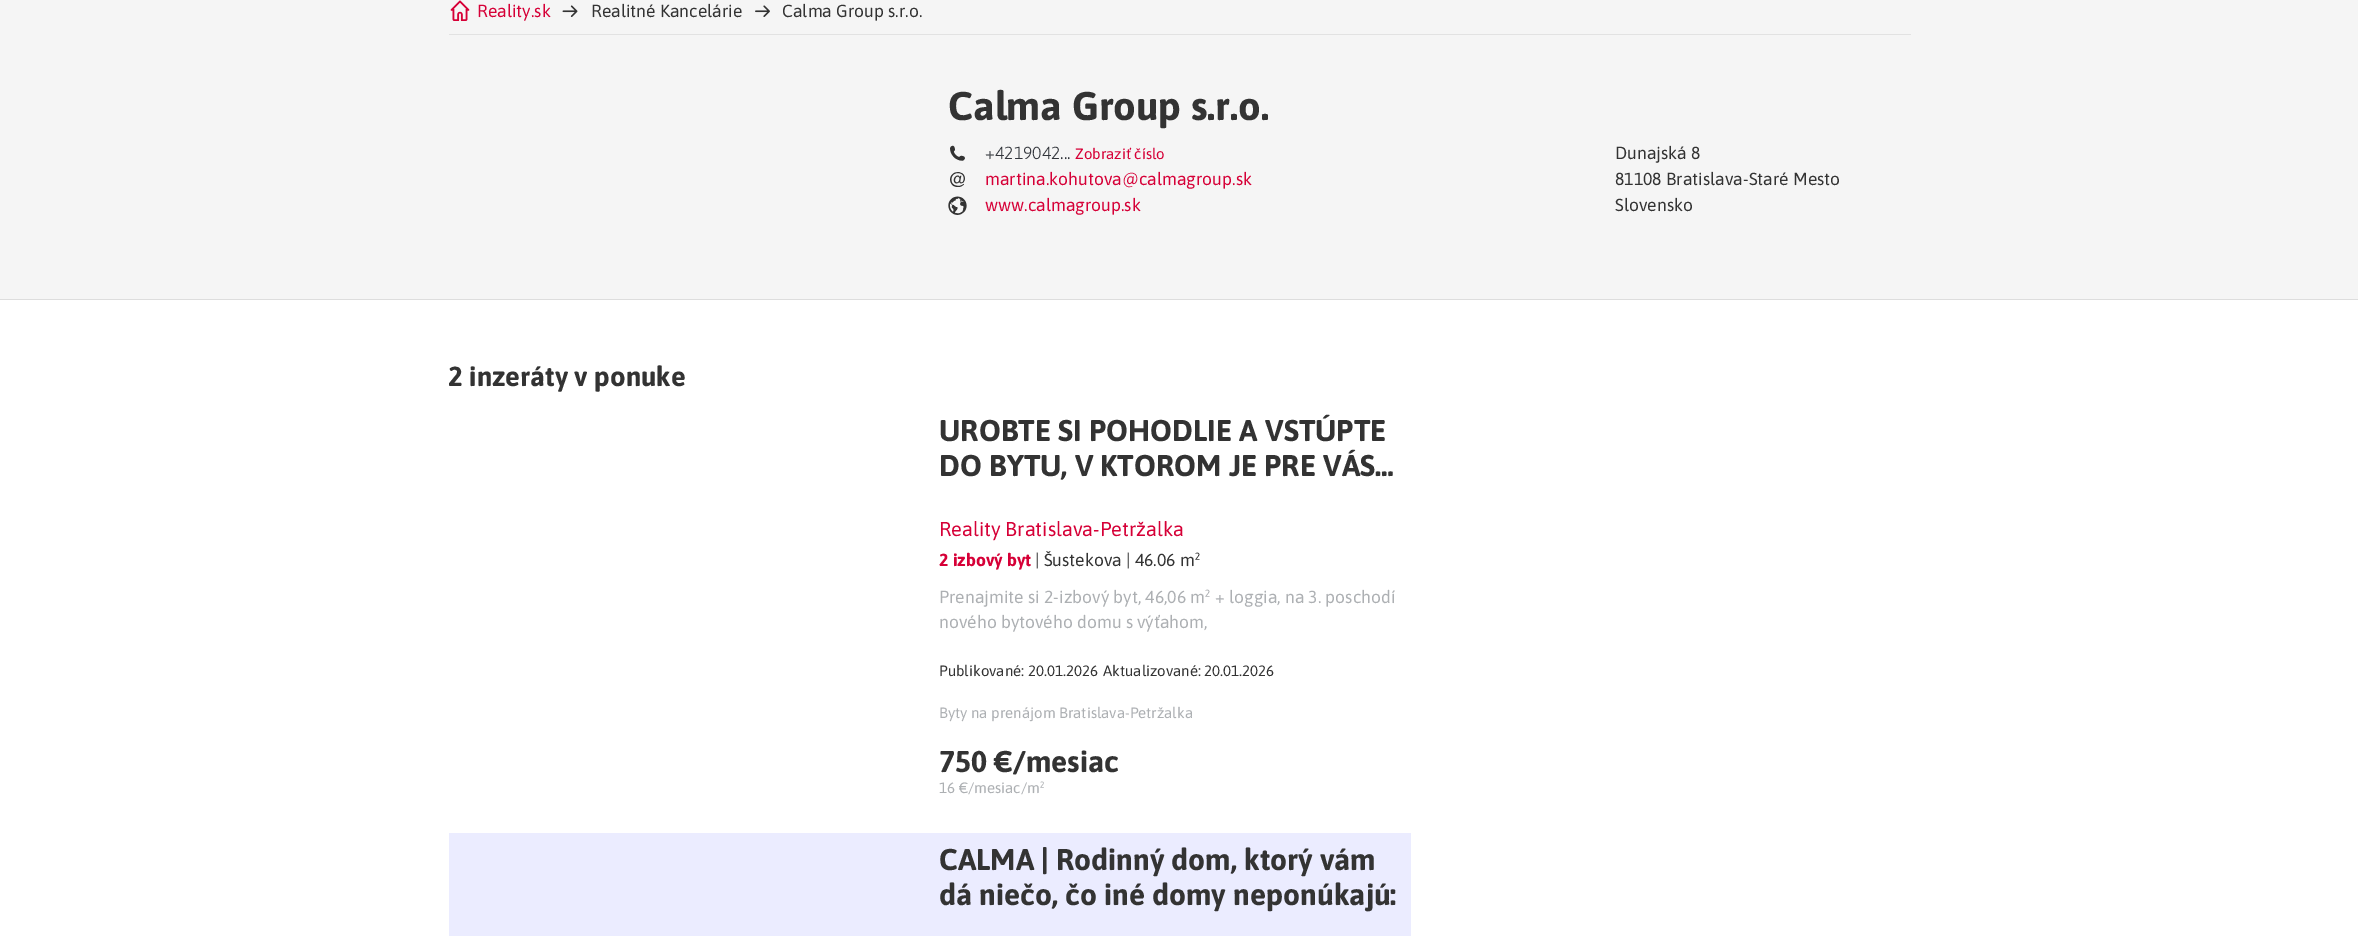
%!PS-Adobe-3.0
%%BoundingBox: 0 0 2358 936
%%LanguageLevel: 3
%%Pages: 1
%%EndComments
%%BeginProlog
/drawimage { 5 dict begin { /h /w /y /x /name } { exch def } forall
  gsave x y translate w h scale
  w h 8 [w 0 0 h 0 0] name (r) file false 3 colorimage grestore end } def
%%EndProlog
%%BeginSetup
<< /PageSize [2358 936] >> setpagedevice
%%EndSetup
%%Page: 1 1
0 936 translate 1 -1 scale
4 setmiterlimit
0.961 setgray
0 0 2358 936 rectfill
0.867 setgray
0 299 2358 1 rectfill
(images/1.raw) 450 0 20 21 drawimage
(images/2.raw) 562 5 16 12 drawimage
(images/3.raw) 755 5 15 12 drawimage
0.886 setgray
449 34 1462 1 rectfill
(images/4.raw) 950 145 15 16 drawimage
(images/5.raw) 950 172 15 15 drawimage
(images/6.raw) 948 196 19 19 drawimage
1 setgray
0 300 2358 636 rectfill
0.922 0.925 1 setrgbcolor
449 833 962 103 rectfill
/Asap-Regular [17.5 0 0 -17.5 0 0] selectfont
0.839 0 0.216 setrgbcolor
477 17 moveto (Reality.sk) show
0.2 setgray
591 17 moveto (Realitné Kancelárie) show
782 17 moveto (Calma Group s.r.o.) show
/Asap-Bold [40 0 0 -40 0 0] selectfont
948 120 moveto (Calma Group s.r.o.) show
/Asap-Light [17.5 0 0 -17.5 0 0] selectfont
0.196 0.208 0.231 setrgbcolor
985 159 moveto (+4219042...) show
/Asap-Regular [15 0 0 -15 0 0] selectfont
0.839 0 0.216 setrgbcolor
1075 159 moveto (Zobraziť číslo) show
/Asap-Regular [17.5 0 0 -17.5 0 0] selectfont
985 185 moveto (martina.kohutova@calmagroup.sk) show
985 211 moveto (www.calmagroup.sk) show
0.2 setgray
1615 159 moveto (Dunajská 8) show
1615 185 moveto (81108 Bratislava-Staré Mesto) show
1615 211 moveto (Slovensko) show
/Asap-Bold [27.5 0 0 -27.5 0 0] selectfont
448 386 moveto (2 inzeráty v ponuke) show
/Asap-Bold [30 0 0 -30 0 0] selectfont
939 441 moveto (UROBTE SI POHODLIE A VSTÚPTE) show
939 476 moveto (DO BYTU, V KTOROM JE PRE VÁS…) show
/Asap-Regular [20 0 0 -20 0 0] selectfont
0.839 0 0.216 setrgbcolor
939 536 moveto (Reality Bratislava-Petržalka) show
/Asap-Bold [17.5 0 0 -17.5 0 0] selectfont
939 566 moveto (2 izbový byt) show
/Asap-Regular [17.5 0 0 -17.5 0 0] selectfont
0.2 setgray
1035 566 moveto (| Šustekova | 46.06 m²) show
0.678 0.69 0.702 setrgbcolor
939 603 moveto (Prenajmite si 2-izbový byt, 46,06 m² + loggia, na 3. poschodí) show
939 628 moveto (nového bytového domu s výťahom,) show
/Asap-Regular [15 0 0 -15 0 0] selectfont
0.2 setgray
939 676 moveto (Publikované: 20.01.2026) show
1103 676 moveto (Aktualizované: 20.01.2026) show
0.678 0.69 0.702 setrgbcolor
939 718 moveto (Byty na prenájom Bratislava-Petržalka) show
/Asap-Bold [30 0 0 -30 0 0] selectfont
0.2 setgray
939 772 moveto (750 €/mesiac) show
/Asap-Regular [15 0 0 -15 0 0] selectfont
0.678 0.69 0.702 setrgbcolor
939 793 moveto (16 €/mesiac/m²) show
/Asap-Bold [30 0 0 -30 0 0] selectfont
0.2 setgray
939 870 moveto (CALMA | Rodinný dom, ktorý vám) show
939 905 moveto (dá niečo, čo iné domy neponúkajú:) show
showpage
%%EOF
